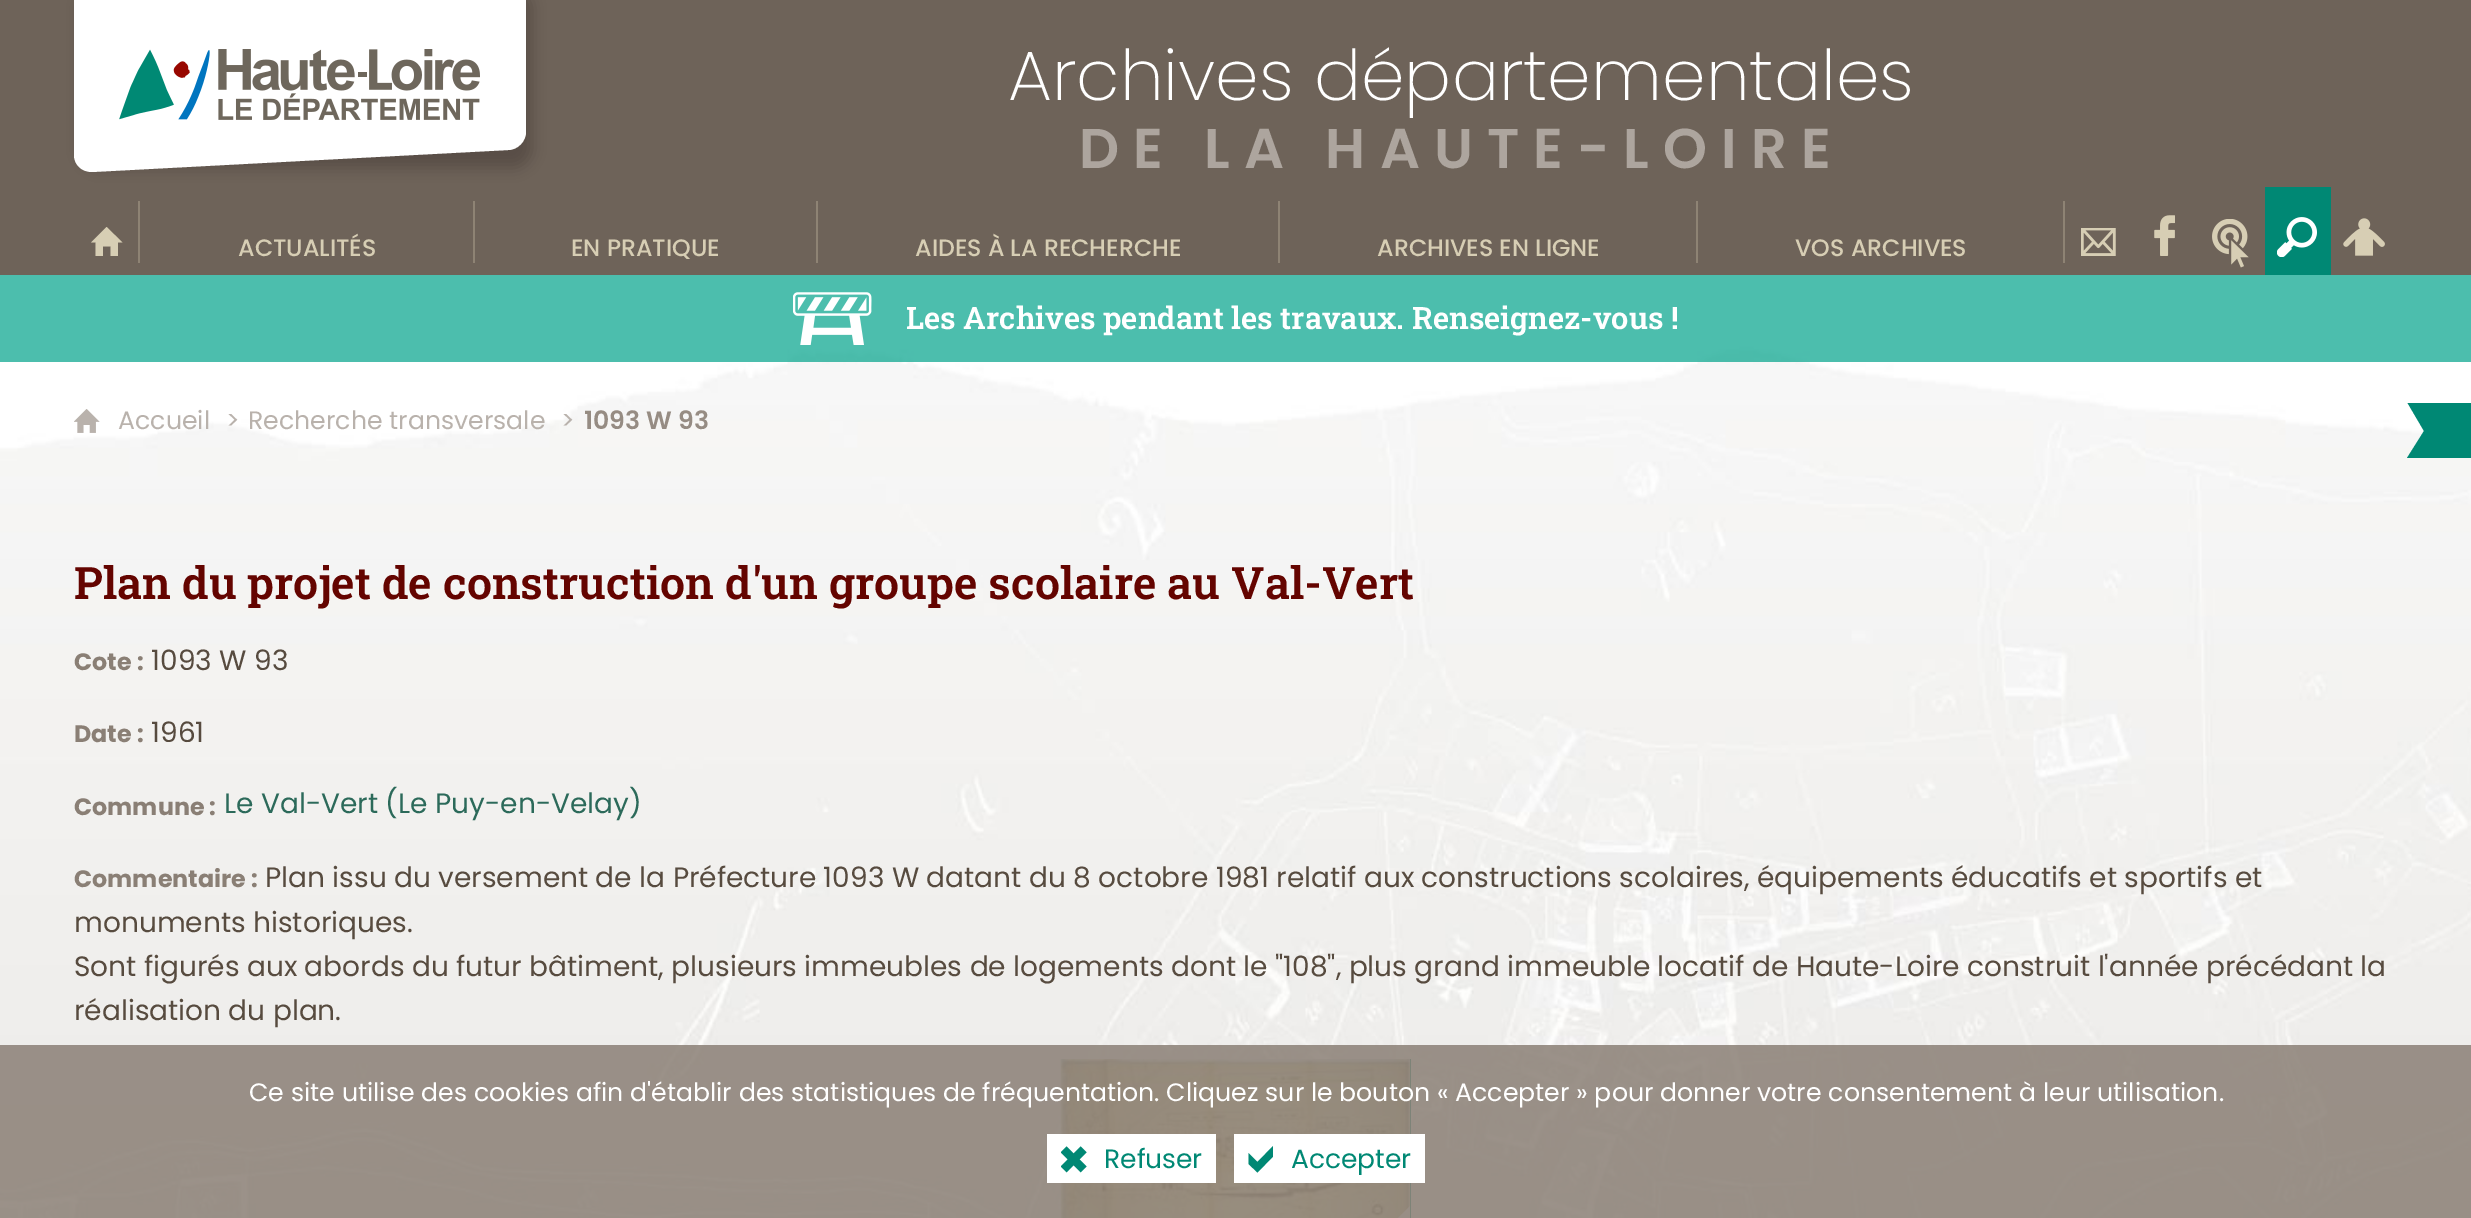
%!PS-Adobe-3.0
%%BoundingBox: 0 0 2471 1218
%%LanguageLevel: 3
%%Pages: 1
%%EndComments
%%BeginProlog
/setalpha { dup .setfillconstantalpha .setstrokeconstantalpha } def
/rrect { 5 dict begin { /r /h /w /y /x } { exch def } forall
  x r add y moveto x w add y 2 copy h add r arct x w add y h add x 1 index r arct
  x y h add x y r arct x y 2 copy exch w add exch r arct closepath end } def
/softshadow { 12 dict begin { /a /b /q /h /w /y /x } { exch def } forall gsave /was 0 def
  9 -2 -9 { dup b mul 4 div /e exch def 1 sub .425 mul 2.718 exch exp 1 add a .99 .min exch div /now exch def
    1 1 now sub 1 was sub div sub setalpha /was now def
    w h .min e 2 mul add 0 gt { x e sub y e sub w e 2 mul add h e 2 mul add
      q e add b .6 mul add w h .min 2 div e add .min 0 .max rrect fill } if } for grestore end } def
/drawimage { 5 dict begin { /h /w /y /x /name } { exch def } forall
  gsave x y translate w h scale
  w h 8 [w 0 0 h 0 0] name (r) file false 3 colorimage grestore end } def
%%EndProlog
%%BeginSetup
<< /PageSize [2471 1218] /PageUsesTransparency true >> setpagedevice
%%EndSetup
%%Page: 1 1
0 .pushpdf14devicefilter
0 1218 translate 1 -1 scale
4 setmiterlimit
1 setgray
0 0 2471 1218 rectfill
(images/1.raw) 0 275 2471 943 drawimage
0.431 0.388 0.349 setrgbcolor
0 0 2471 187 rectfill
0 setgray
81 -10 451 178 18 7 0.2 softshadow
1 setgray
newpath 74 -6 moveto 526 -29 lineto 526 132 lineto 526 141 518 150 508 150 curveto 92 172 lineto 82 172 74 165 74 155 curveto closepath fill
(images/2.raw) 119 49 361 71 drawimage
0.431 0.388 0.349 setrgbcolor
0 187 2471 88 rectfill
0.843 0.808 0.706 setrgbcolor
newpath 122.5 242.5 moveto 106.5 227 lineto 91 242.5 lineto 95.5 242.5 lineto 95.5 256 lineto 103 256 lineto 103 246.5 lineto 110.5 246.5 lineto 110.5 256 lineto 118 256 lineto 118 242.5 lineto closepath fill
0.557 0.514 0.455 setrgbcolor
138 201 2 62 rectfill
473 201 2 62 rectfill
816 201 2 62 rectfill
1278 201 2 62 rectfill
1696 201 2 62 rectfill
2063 201 2 62 rectfill
(images/3.raw) 2081 228 35 28 drawimage
(images/4.raw) 2154 215 21 41 drawimage
(images/5.raw) 2212 219 37 49 drawimage
0 0.533 0.455 setrgbcolor
2265 187 66 88 rectfill
(images/6.raw) 2277 217 40 40 drawimage
(images/7.raw) 2343 218 42 38 drawimage
0.7 setalpha
0 0.635 0.541 setrgbcolor
0 275 2471 87 rectfill
1 setalpha
(images/8.raw) 793 292 79 53 drawimage
0 0.533 0.455 setrgbcolor
1410 1059 1 159 rectfill
(images/9.raw) 1060 1059 351 159 drawimage
0.906 0.898 0.89 setrgbcolor
newpath 1410 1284 moveto 1332 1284 lineto 1410 1206 lineto closepath fill
(images/10.raw) 74 409 26 24 drawimage
gsave
2399 403 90 56 rectclip
0 0.533 0.455 setrgbcolor
newpath 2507 458 moveto 2407 458 lineto 2424 431 lineto 2407 402 lineto 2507 402 lineto closepath fill
grestore
0.85 setalpha
0.541 0.498 0.459 setrgbcolor
0 1045 2471 173 rectfill
1 setalpha
1 setgray
1047 1134 169 49 rectfill
(images/11.raw) 1061 1146 26 27 drawimage
1234 1134 191 49 rectfill
0 0.533 0.455 setrgbcolor
newpath 1273 1156.5 moveto 1257.5 1172.5 lineto 1248.5 1164 lineto 1248.5 1153 lineto 1257.5 1162 lineto 1273 1146 lineto closepath fill
/Poppins-ExtraLight [70 0 0 -70 0 0] selectfont
1 setgray
1008 100 moveto (Archives départementales) show
/Poppins-SemiBold [56 0 0 -56 0 0] selectfont
0.678 0.647 0.62 setrgbcolor
1079 168 moveto 14 0 (DE LA HAUTE-LOIRE) ashow
/Poppins-Medium [23.75 0 0 -23.75 0 0] selectfont
0.843 0.808 0.706 setrgbcolor
238 256 moveto (ACTUALITÉS) show
571 256 moveto (EN PRATIQUE) show
915 256 moveto (AIDES À LA RECHERCHE) show
1377 256 moveto (ARCHIVES EN LIGNE) show
1795 256 moveto (VOS ARCHIVES) show
/RobotoSlab-SemiBold [30.8 0 0 -30.8 0 0] selectfont
1 setgray
906 329 moveto (Les Archives pendant les travaux. Renseignez-vous !) show
/RobotoSlab-SemiBold [44.8 0 0 -44.8 0 0] selectfont
0.392 0.016 0 setrgbcolor
74 599 moveto (Plan du projet de construction d'un groupe scolaire au Val-Vert) show
/Poppins-Bold [23.75 0 0 -23.75 0 0] selectfont
0.541 0.498 0.459 setrgbcolor
74 670 moveto (Cote :) show
/Poppins-Regular [28 0 0 -28 0 0] selectfont
0.341 0.294 0.247 setrgbcolor
151 670 moveto (1093 W 93) show
/Poppins-Bold [23.75 0 0 -23.75 0 0] selectfont
0.541 0.498 0.459 setrgbcolor
74 742 moveto (Date :) show
/Poppins-Regular [28 0 0 -28 0 0] selectfont
0.341 0.294 0.247 setrgbcolor
151 742 moveto (1961) show
/Poppins-Bold [23.75 0 0 -23.75 0 0] selectfont
0.541 0.498 0.459 setrgbcolor
74 815 moveto (Commune :) show
/Poppins-Regular [28 0 0 -28 0 0] selectfont
0.173 0.416 0.353 setrgbcolor
224 813 moveto (Le Val-Vert \(Le Puy-en-Velay\)) show
/Poppins-Bold [23.75 0 0 -23.75 0 0] selectfont
0.541 0.498 0.459 setrgbcolor
74 887 moveto (Commentaire :) show
/Poppins-Regular [28 0 0 -28 0 0] selectfont
0.341 0.294 0.247 setrgbcolor
265 887 moveto (Plan issu du versement de la Préfecture 1093 W datant du 8 octobre 1981 relatif aux constructions scolaires, équipements éducatifs et sportifs et) show
74 932 moveto (monuments historiques.) show
74 976 moveto (Sont figurés aux abords du futur bâtiment, plusieurs immeubles de logements dont le "108", plus grand immeuble locatif de Haute-Loire construit l'année précédant la) show
74 1020 moveto (réalisation du plan.) show
/Poppins-Regular [25.2 0 0 -25.2 0 0] selectfont
0.725 0.698 0.675 setrgbcolor
118 429 moveto (Accueil) show
226 429 moveto (>) show
248 429 moveto (Recherche transversale) show
561 429 moveto (>) show
/Poppins-SemiBold [25.2 0 0 -25.2 0 0] selectfont
0.588 0.549 0.514 setrgbcolor
584 429 moveto (1093 W 93) show
/Poppins-Regular [25.2 0 0 -25.2 0 0] selectfont
1 setgray
249 1101 moveto (Ce site utilise des cookies afin d'établir des statistiques de fréquentation. Cliquez sur le bouton « Accepter » pour donner votre consentement à leur utilisation.) show
/Poppins-Regular [26.5 0 0 -26.5 0 0] selectfont
0 0.533 0.455 setrgbcolor
1104 1168 moveto (Refuser) show
1291 1168 moveto (Accepter) show
.poppdf14devicefilter showpage
%%EOF
